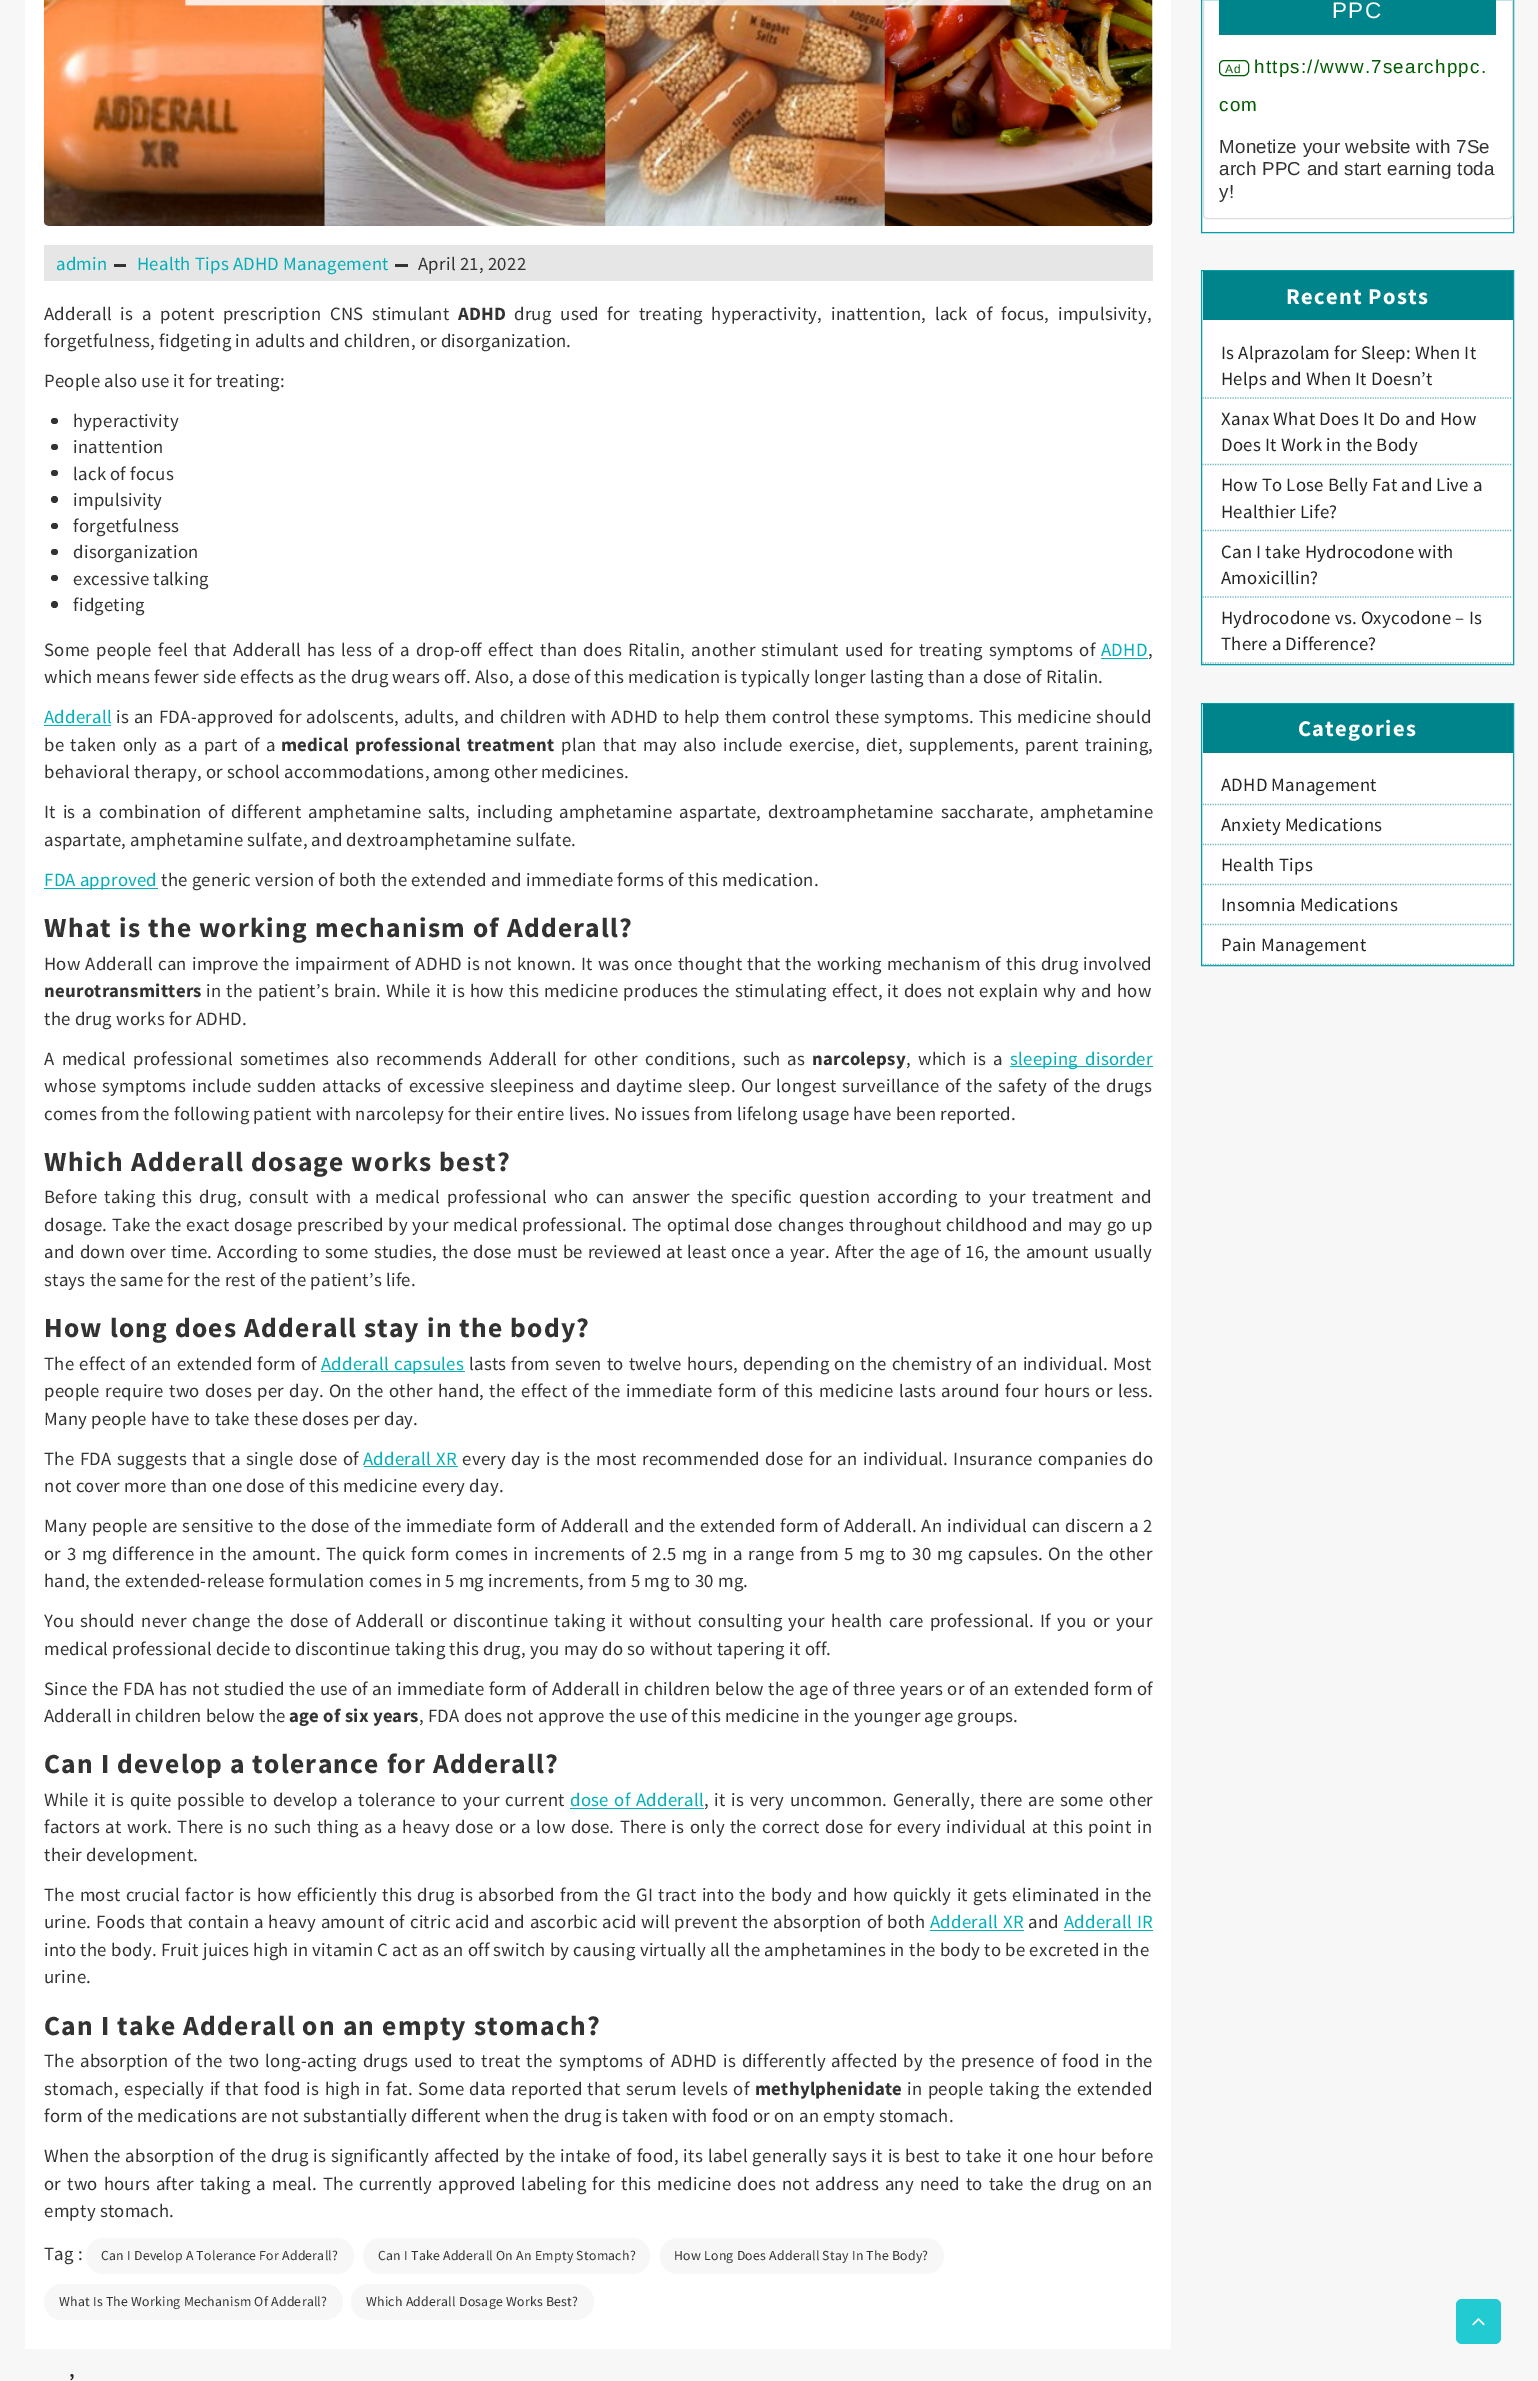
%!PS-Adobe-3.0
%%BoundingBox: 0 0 1538 2381
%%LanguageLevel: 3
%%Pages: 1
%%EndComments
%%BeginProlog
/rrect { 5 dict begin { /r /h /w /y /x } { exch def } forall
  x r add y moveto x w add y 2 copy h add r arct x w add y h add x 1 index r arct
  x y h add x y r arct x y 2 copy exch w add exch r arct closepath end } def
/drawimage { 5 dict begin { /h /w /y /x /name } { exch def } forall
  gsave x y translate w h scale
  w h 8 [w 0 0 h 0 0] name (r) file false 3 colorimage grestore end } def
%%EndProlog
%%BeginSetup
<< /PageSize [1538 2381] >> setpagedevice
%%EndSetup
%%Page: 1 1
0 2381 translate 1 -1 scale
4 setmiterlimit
0.969 setgray
0 0 1538 2381 rectfill
1 setgray
25 0 1146 2349 rectfill
(images/1.raw) 43 0 1110 226 drawimage
0.902 setgray
44 245 1109 36 rectfill
0.2 setgray
114 264 12 3 rectfill
395 264 13 3 rectfill
51 418 7 6 3 rrect fill
51 444 7 6 3 rrect fill
51 470 7 6 3 rrect fill
newpath 54.5 499.5 3.5 0 360 arc closepath fill
51 523 7 6 3 rrect fill
51 549 7 6 3 rrect fill
51 575 7 6 3 rrect fill
newpath 54.5 604.5 3.5 0 360 arc closepath fill
0.008 0.69 0.725 setrgbcolor
1101 658 47 1 rectfill
44 725 67 1 rectfill
44 888 114 1 rectfill
1010 1066 143 1 rectfill
321 1371 144 1 rectfill
364 1466 94 1 rectfill
570 1808 134 1 rectfill
930 1930 94 1 rectfill
1064 1930 89 1 rectfill
0.969 setgray
86 2238 268 36 18 rrect fill
363 2238 287 36 18 rrect fill
660 2238 284 36 18 rrect fill
44 2284 299 36 18 rrect fill
351 2284 243 36 18 rrect fill
1 setgray
newpath 1201.5 -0.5 moveto 1513.5 -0.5 lineto 1513.5 232.5 lineto 1201.5 232.5 lineto closepath gsave fill grestore
0 0.627 0.659 setrgbcolor
stroke
0.867 setgray
1203.5 -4.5 309 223 3.5 rrect stroke
0 0.518 0.545 setrgbcolor
1219 0 277 35 rectfill
0 0.361 0 setrgbcolor
1219.5 60.5 29 15 4.5 rrect stroke
1 setgray
newpath 1201.5 270.5 moveto 1513.5 270.5 lineto 1513.5 664.5 lineto 1201.5 664.5 lineto closepath gsave fill grestore
0 0.627 0.659 setrgbcolor
stroke
0 0.518 0.545 setrgbcolor
1203 271 310 49 rectfill
0.427 0.718 0.733 setrgbcolor
1.2 setlinewidth
[1.25 1.25] 0 setdash
newpath 1202.5 663 moveto 1512.5 663 lineto stroke
newpath 1202.5 398 moveto 1512.5 398 lineto stroke
newpath 1202.5 464.5 moveto 1512.5 464.5 lineto stroke
newpath 1202.5 530.5 moveto 1512.5 530.5 lineto stroke
newpath 1202.5 597 moveto 1512.5 597 lineto stroke
1 setgray
newpath 1201.5 703.5 moveto 1513.5 703.5 lineto 1513.5 965.5 lineto 1201.5 965.5 lineto closepath gsave fill grestore
0 0.627 0.659 setrgbcolor
1 setlinewidth
[] 0 setdash
stroke
0 0.518 0.545 setrgbcolor
1203 704 310 49 rectfill
0.427 0.718 0.733 setrgbcolor
1.2 setlinewidth
[1.25 1.25] 0 setdash
newpath 1202.5 964.5 moveto 1512.5 964.5 lineto stroke
newpath 1202.5 804.5 moveto 1512.5 804.5 lineto stroke
newpath 1202.5 844.5 moveto 1512.5 844.5 lineto stroke
newpath 1202.5 884.5 moveto 1512.5 884.5 lineto stroke
newpath 1202.5 924.5 moveto 1512.5 924.5 lineto stroke
0.129 0.796 0.82 setrgbcolor
1456 2299 45 45 6 rrect fill
(images/2.raw) 1472 2318 13 8 drawimage
/SourceSansPro-Regular [18.75 0 0 -18.75 0 0] selectfont
0.008 0.69 0.725 setrgbcolor
56 270 moveto 0.25 0 (admin) ashow
137 270 moveto 0.25 0 (Health Tips ADHD Management) ashow
0.2 setgray
418 270 moveto 0.25 0 (April 21, 2022) ashow
44 320 moveto 4.5 0 32 0.25 0 (Adderall is a potent prescription CNS stimulant) awidthshow
/SourceSansPro-Bold [18.75 0 0 -18.75 0 0] selectfont
458 320 moveto 0.25 0 (ADHD) ashow
/SourceSansPro-Regular [18.75 0 0 -18.75 0 0] selectfont
514 320 moveto 4.5 0 32 0.25 0 (drug used for treating hyperactivity, inattention, lack of focus, impulsivity,) awidthshow
44 347 moveto 0.25 0 (forgetfulness, fidgeting in adults and children, or disorganization.) ashow
44 387 moveto 0.25 0 (People also use it for treating:) ashow
73 427 moveto 0.25 0 (hyperactivity) ashow
73 453 moveto 0.25 0 (inattention) ashow
73 480 moveto 0.25 0 (lack of focus) ashow
73 506 moveto 0.25 0 (impulsivity) ashow
73 532 moveto 0.25 0 (forgetfulness) ashow
73 558 moveto 0.25 0 (disorganization) ashow
73 585 moveto 0.25 0 (excessive talking) ashow
73 611 moveto 0.25 0 (fidgeting) ashow
44 656 moveto 2 0 32 0.25 0 (Some people feel that Adderall has less of a drop-off effect than does Ritalin, another stimulant used for treating symptoms of) awidthshow
0.008 0.69 0.725 setrgbcolor
1101 656 moveto 0.25 0 (ADHD) ashow
0.2 setgray
1148 656 moveto 0.25 0 (,) ashow
44 683 moveto 0.25 0 (which means fewer side effects as the drug wears off. Also, a dose of this medication is typically longer lasting than a dose of Ritalin.) ashow
0.008 0.69 0.725 setrgbcolor
44 723 moveto 0.25 0 (Adderall) ashow
0.2 setgray
116 723 moveto 0.8 0 32 0.25 0 (is an FDA-approved for adolscents, adults, and children with ADHD to help them control these symptoms. This medicine should) awidthshow
44 751 moveto 2.25 0 32 0.25 0 (be taken only as a part of a) awidthshow
/SourceSansPro-Bold [18.75 0 0 -18.75 0 0] selectfont
281 751 moveto 2.25 0 32 0.25 0 (medical professional treatment) awidthshow
/SourceSansPro-Regular [18.75 0 0 -18.75 0 0] selectfont
561 751 moveto 2.25 0 32 0.25 0 (plan that may also include exercise, diet, supplements, parent training,) awidthshow
44 778 moveto 0.25 0 (behavioral therapy, or school accommodations, among other medicines.) ashow
44 818 moveto 2.75 0 32 0.25 0 (It is a combination of different amphetamine salts, including amphetamine aspartate, dextroamphetamine saccharate, amphetamine) awidthshow
44 846 moveto 0.25 0 (aspartate, amphetamine sulfate, and dextroamphetamine sulfate.) ashow
0.008 0.69 0.725 setrgbcolor
44 886 moveto 0.25 0 (FDA approved) ashow
0.2 setgray
161 886 moveto 0.25 0 (the generic version of both the extended and immediate forms of this medication.) ashow
/SourceSansPro-Bold [27.5 0 0 -27.5 0 0] selectfont
44 937 moveto 1.25 0 (What is the working mechanism of Adderall?) ashow
/SourceSansPro-Regular [18.75 0 0 -18.75 0 0] selectfont
44 970 moveto 0.75 0 32 0.25 0 (How Adderall can improve the impairment of ADHD is not known. It was once thought that the working mechanism of this drug involved) awidthshow
/SourceSansPro-Bold [18.75 0 0 -18.75 0 0] selectfont
44 997 moveto 0.25 0 (neurotransmitters) ashow
/SourceSansPro-Regular [18.75 0 0 -18.75 0 0] selectfont
206 997 moveto 0.8 0 32 0.25 0 (in the patient’s brain. While it is how this medicine produces the stimulating effect, it does not explain why and how) awidthshow
44 1025 moveto 0.25 0 (the drug works for ADHD.) ashow
44 1065 moveto 3.1 0 32 0.25 0 (A medical professional sometimes also recommends Adderall for other conditions, such as) awidthshow
/SourceSansPro-Bold [18.75 0 0 -18.75 0 0] selectfont
812 1065 moveto 0.25 0 (narcolepsy) ashow
/SourceSansPro-Regular [18.75 0 0 -18.75 0 0] selectfont
906 1065 moveto 3.1 0 32 0.25 0 (, which is a) awidthshow
0.008 0.69 0.725 setrgbcolor
1010 1065 moveto 3.1 0 32 0.25 0 (sleeping disorder) awidthshow
0.2 setgray
44 1092 moveto 1.5 0 32 0.25 0 (whose symptoms include sudden attacks of excessive sleepiness and daytime sleep. Our longest surveillance of the safety of the drugs) awidthshow
44 1120 moveto 0.25 0 (comes from the following patient with narcolepsy for their entire lives. No issues from lifelong usage have been reported.) ashow
/SourceSansPro-Bold [27.5 0 0 -27.5 0 0] selectfont
44 1171 moveto 1.25 0 (Which Adderall dosage works best?) ashow
/SourceSansPro-Regular [18.75 0 0 -18.75 0 0] selectfont
44 1203 moveto 3.1 0 32 0.25 0 (Before taking this drug, consult with a medical professional who can answer the specific question according to your treatment and) awidthshow
44 1231 moveto 0.6 0 32 0.25 0 (dosage. Take the exact dosage prescribed by your medical professional. The optimal dose changes throughout childhood and may go up) awidthshow
44 1258 moveto 0.9 0 32 0.25 0 (and down over time. According to some studies, the dose must be reviewed at least once a year. After the age of 16, the amount usually) awidthshow
44 1286 moveto 0.25 0 (stays the same for the rest of the patient’s life.) ashow
/SourceSansPro-Bold [27.5 0 0 -27.5 0 0] selectfont
44 1337 moveto 1.25 0 (How long does Adderall stay in the body?) ashow
/SourceSansPro-Regular [18.75 0 0 -18.75 0 0] selectfont
44 1370 moveto 1 0 32 0.25 0 (The effect of an extended form of) awidthshow
0.008 0.69 0.725 setrgbcolor
321 1370 moveto 0.9 0 32 0.25 0 (Adderall capsules) awidthshow
0.2 setgray
469 1370 moveto 0.9 0 32 0.25 0 (lasts from seven to twelve hours, depending on the chemistry of an individual. Most) awidthshow
44 1397 moveto 1.25 0 32 0.25 0 (people require two doses per day. On the other hand, the effect of the immediate form of this medicine lasts around four hours or less.) awidthshow
44 1425 moveto 0.25 0 (Many people have to take these doses per day.) ashow
44 1465 moveto 1.25 0 32 0.25 0 (The FDA suggests that a single dose of) awidthshow
0.008 0.69 0.725 setrgbcolor
363 1465 moveto 1.25 0 32 0.25 0 (Adderall XR) awidthshow
0.2 setgray
462 1465 moveto 1.25 0 32 0.25 0 (every day is the most recommended dose for an individual. Insurance companies do) awidthshow
44 1492 moveto 0.25 0 (not cover more than one dose of this medicine every day.) ashow
44 1532 moveto 0.5 0 32 0.25 0 (Many people are sensitive to the dose of the immediate form of Adderall and the extended form of Adderall. An individual can discern a 2) awidthshow
44 1560 moveto 1.4 0 32 0.25 0 (or 3 mg difference in the amount. The quick form comes in increments of 2.5 mg in a range from 5 mg to 30 mg capsules. On the other) awidthshow
44 1587 moveto 0.25 0 (hand, the extended-release formulation comes in 5 mg increments, from 5 mg to 30 mg.) ashow
44 1627 moveto 1.95 0 32 0.25 0 (You should never change the dose of Adderall or discontinue taking it without consulting your health care professional. If you or your) awidthshow
44 1655 moveto 0.25 0 (medical professional decide to discontinue taking this drug, you may do so without tapering it off.) ashow
44 1695 moveto 0.3 0 32 0.25 0 (Since the FDA has not studied the use of an immediate form of Adderall in children below the age of three years or of an extended form of) awidthshow
44 1722 moveto 0.25 0 (Adderall in children below the) ashow
/SourceSansPro-Bold [18.75 0 0 -18.75 0 0] selectfont
289 1722 moveto 0.25 0 (age of six years) ashow
/SourceSansPro-Regular [18.75 0 0 -18.75 0 0] selectfont
419 1722 moveto 0.25 0 (, FDA does not approve the use of this medicine in the younger age groups.) ashow
/SourceSansPro-Bold [27.5 0 0 -27.5 0 0] selectfont
44 1773 moveto 1.25 0 (Can I develop a tolerance for Adderall?) ashow
/SourceSansPro-Regular [18.75 0 0 -18.75 0 0] selectfont
44 1806 moveto 1.5 0 32 0.25 0 (While it is quite possible to develop a tolerance to your current) awidthshow
0.008 0.69 0.725 setrgbcolor
570 1806 moveto 1.5 0 32 0.25 0 (dose of Adderall) awidthshow
0.2 setgray
704 1806 moveto 1.5 0 32 0.25 0 (, it is very uncommon. Generally, there are some other) awidthshow
44 1833 moveto 1.25 0 32 0.25 0 (factors at work. There is no such thing as a heavy dose or a low dose. There is only the correct dose for every individual at this point in) awidthshow
44 1861 moveto 0.25 0 (their development.) ashow
44 1901 moveto 1.25 0 32 0.25 0 (The most crucial factor is how efficiently this drug is absorbed from the GI tract into the body and how quickly it gets eliminated in the) awidthshow
44 1928 moveto 0.75 0 32 0.25 0 (urine. Foods that contain a heavy amount of citric acid and ascorbic acid will prevent the absorption of both) awidthshow
0.008 0.69 0.725 setrgbcolor
930 1928 moveto 1 0 32 0.25 0 (Adderall XR) awidthshow
0.2 setgray
1028 1928 moveto 0.25 0 (and) ashow
0.008 0.69 0.725 setrgbcolor
1064 1928 moveto 1 0 32 0.25 0 (Adderall IR) awidthshow
0.2 setgray
44 1956 moveto 0.25 0 (into the body. Fruit juices high in vitamin C act as an off switch by causing virtually all the amphetamines in the body to be excreted in the) ashow
44 1983 moveto 0.25 0 (urine.) ashow
/SourceSansPro-Bold [27.5 0 0 -27.5 0 0] selectfont
44 2035 moveto 1.25 0 (Can I take Adderall on an empty stomach?) ashow
/SourceSansPro-Regular [18.75 0 0 -18.75 0 0] selectfont
44 2067 moveto 1.75 0 32 0.25 0 (The absorption of the two long-acting drugs used to treat the symptoms of ADHD is differently affected by the presence of food in the) awidthshow
44 2095 moveto 1.25 0 32 0.25 0 (stomach, especially if that food is high in fat. Some data reported that serum levels of) awidthshow
/SourceSansPro-Bold [18.75 0 0 -18.75 0 0] selectfont
755 2095 moveto 0.25 0 (methylphenidate) ashow
/SourceSansPro-Regular [18.75 0 0 -18.75 0 0] selectfont
907 2095 moveto 1.25 0 32 0.25 0 (in people taking the extended) awidthshow
44 2122 moveto 0.25 0 (form of the medications are not substantially different when the drug is taken with food or on an empty stomach.) ashow
44 2162 moveto 0.7 0 32 0.25 0 (When the absorption of the drug is significantly affected by the intake of food, its label generally says it is best to take it one hour before) awidthshow
44 2190 moveto 1.85 0 32 0.25 0 (or two hours after taking a meal. The currently approved labeling for this medicine does not address any need to take the drug on an) awidthshow
44 2217 moveto 0.25 0 (empty stomach.) ashow
44 2260 moveto 0.25 0 (Tag :) ashow
/SourceSansPro-Regular [13.75 0 0 -13.75 0 0] selectfont
101 2260 moveto 0.25 0 (Can I Develop A Tolerance For Adderall?) ashow
378 2260 moveto 0.25 0 (Can I Take Adderall On An Empty Stomach?) ashow
674 2260 moveto 0.25 0 (How Long Does Adderall Stay In The Body?) ashow
59 2306 moveto 0.25 0 (What Is The Working Mechanism Of Adderall?) ashow
366 2306 moveto 0.25 0 (Which Adderall Dosage Works Best?) ashow
/SourceSansPro-Bold [18.75 0 0 -18.75 0 0] selectfont
0.145 setgray
69 2387 moveto 0.25 0 (’) ashow
/LiberationSans-Regular [22.5 0 0 -22.5 0 0] selectfont
1 setgray
1332 18 moveto 1.25 0 (PPC) ashow
/LiberationSans-Regular [12 0 0 -12 0 0] selectfont
0 0.361 0 setrgbcolor
1225 73 moveto 1.25 0 (Ad) ashow
/LiberationSans-Regular [18.75 0 0 -18.75 0 0] selectfont
1254 73 moveto 1.25 0 (https://www.7searchppc.) ashow
1219 111 moveto 1.25 0 (com) ashow
0.2 setgray
1219 153 moveto 0.25 0 (Monetize your website with 7Se) ashow
1219 175 moveto 0.25 0 (arch PPC and start earning toda) ashow
1219 198 moveto 0.25 0 (y!) ashow
/SourceSansPro-Bold [22.5 0 0 -22.5 0 0] selectfont
1 setgray
1286 304 moveto 1.25 0 (Recent Posts) ashow
/SourceSansPro-Regular [18.75 0 0 -18.75 0 0] selectfont
0.145 setgray
1221 359 moveto 0.25 0 (Is Alprazolam for Sleep: When It) ashow
1221 385 moveto 0.25 0 (Helps and When It Doesn’t) ashow
1221 425 moveto 0.25 0 (Xanax What Does It Do and How) ashow
1221 451 moveto 0.25 0 (Does It Work in the Body) ashow
1221 491 moveto 0.25 0 (How To Lose Belly Fat and Live a) ashow
1221 518 moveto 0.25 0 (Healthier Life?) ashow
1221 558 moveto 0.25 0 (Can I take Hydrocodone with) ashow
1221 584 moveto 0.25 0 (Amoxicillin?) ashow
1221 624 moveto 0.25 0 (Hydrocodone vs. Oxycodone – Is) ashow
1221 650 moveto 0.25 0 (There a Difference?) ashow
/SourceSansPro-Bold [22.5 0 0 -22.5 0 0] selectfont
1 setgray
1298 736 moveto 1.25 0 (Categories) ashow
/SourceSansPro-Regular [18.75 0 0 -18.75 0 0] selectfont
0.145 setgray
1221 791 moveto 0.25 0 (ADHD Management) ashow
1221 831 moveto 0.25 0 (Anxiety Medications) ashow
1221 871 moveto 0.25 0 (Health Tips) ashow
1221 911 moveto 0.25 0 (Insomnia Medications) ashow
1221 951 moveto 0.25 0 (Pain Management) ashow
showpage
%%EOF
